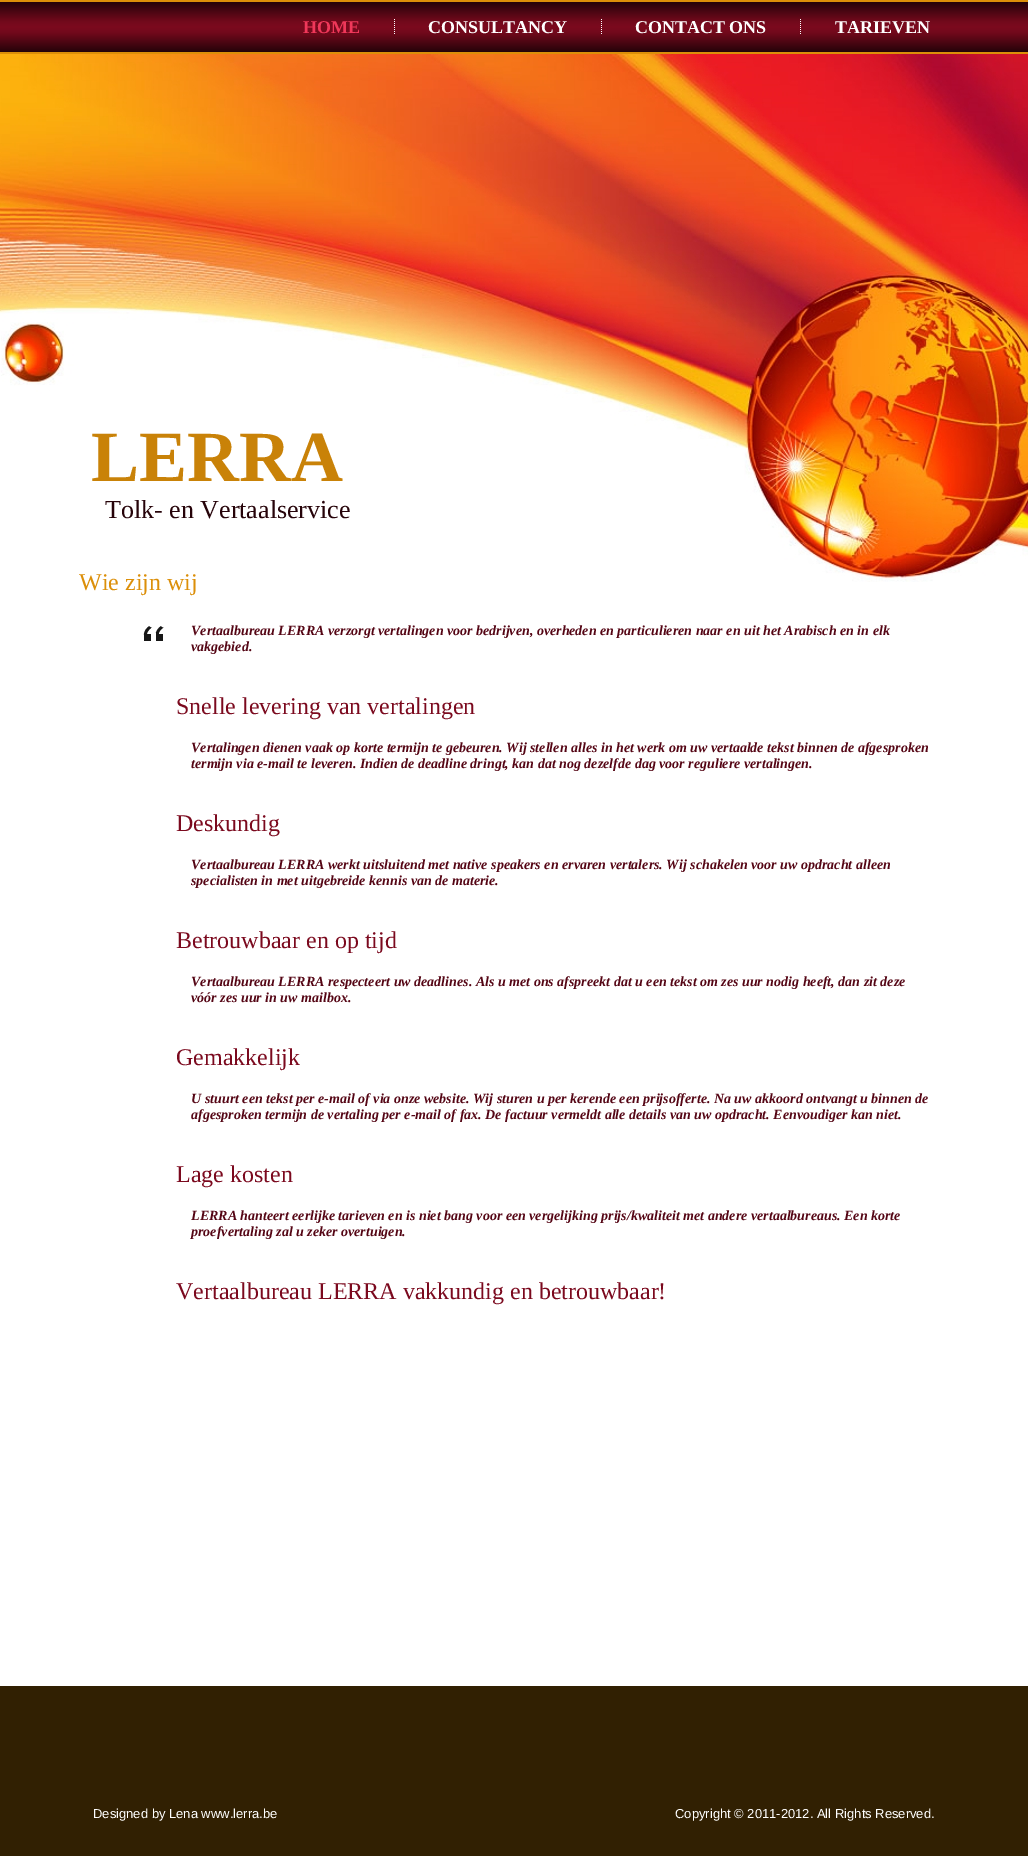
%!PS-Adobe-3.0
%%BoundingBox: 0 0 1028 1856
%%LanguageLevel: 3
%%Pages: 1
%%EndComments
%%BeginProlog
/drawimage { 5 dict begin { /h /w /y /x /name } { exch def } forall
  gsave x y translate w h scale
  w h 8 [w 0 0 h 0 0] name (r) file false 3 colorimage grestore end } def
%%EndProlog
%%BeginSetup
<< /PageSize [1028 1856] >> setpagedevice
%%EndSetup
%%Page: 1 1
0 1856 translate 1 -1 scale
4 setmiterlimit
1 setgray
0 0 1028 1856 rectfill
(images/1.raw) 0 54 1028 528 drawimage
gsave newpath 0 2 moveto 1028 2 lineto 1028 52 lineto 0 52 lineto closepath clip newpath
<< /ShadingType 2 /ColorSpace /DeviceRGB /Coords [514 0 514 54] /Extend [true true] /Function << /FunctionType 3 /Domain [0 1] /Functions [<< /FunctionType 2 /Domain [0 1] /C0 [0.11 0.008 0.027] /C1 [0.447 0.035 0.11] /N 1 >> << /FunctionType 2 /Domain [0 1] /C0 [0.447 0.035 0.11] /C1 [0.482 0.035 0.118] /N 1 >> << /FunctionType 2 /Domain [0 1] /C0 [0.482 0.035 0.118] /C1 [0.447 0.035 0.11] /N 1 >> << /FunctionType 2 /Domain [0 1] /C0 [0.447 0.035 0.11] /C1 [0.11 0.008 0.027] /N 1 >>] /Bounds [0.4 0.5 0.6] /Encode [0 1 0 1 0 1 0 1] >> >> shfill grestore
0.863 0.561 0.035 setrgbcolor
0 0 1028 2 rectfill
0 52 1028 2 rectfill
(images/2.raw) 394 19 1 15 drawimage
(images/2.raw) 601 19 1 15 drawimage
(images/2.raw) 800 19 1 15 drawimage
(images/3.raw) 143 626 21 15 drawimage
0.192 0.125 0.008 setrgbcolor
0 1686 1028 170 rectfill
/LiberationSerif-Bold [18 0 0 -18 0 0] selectfont
0.941 0.22 0.353 setrgbcolor
303 33 moveto (HOME) show
1 setgray
428 33 moveto (CONSULTANCY) show
635 33 moveto (CONTACT ONS) show
835 33 moveto (TARIEVEN) show
/LiberationSerif-Bold [72 0 0 -72 0 0] selectfont
0.788 0.51 0.031 setrgbcolor
91 481 moveto (LERRA) show
/LiberationSerif-Regular [26 0 0 -26 0 0] selectfont
0.149 0.012 0.035 setrgbcolor
105 518 moveto (Tolk- en Vertaalservice) show
/LiberationSerif-Regular [24 0 0 -24 0 0] selectfont
0.863 0.561 0.035 setrgbcolor
79 590 moveto (Wie zijn wij) show
/LiberationSerif-BoldItalic [14 0 0 -14 0 0] selectfont
0.333 0.024 0.082 setrgbcolor
191 635 moveto (Vertaalbureau LERRA verzorgt vertalingen voor bedrijven, overheden en particulieren naar en uit het Arabisch en in elk) show
191 651 moveto (vakgebied.) show
/LiberationSerif-Regular [24 0 0 -24 0 0] selectfont
0.482 0.035 0.118 setrgbcolor
176 714 moveto (Snelle levering van vertalingen) show
/LiberationSerif-BoldItalic [14 0 0 -14 0 0] selectfont
0.333 0.024 0.082 setrgbcolor
191 752 moveto (Vertalingen dienen vaak op korte termijn te gebeuren. Wij stellen alles in het werk om uw vertaalde tekst binnen de afgesproken) show
191 768 moveto (termijn via e-mail te leveren. Indien de deadline dringt, kan dat nog dezelfde dag voor reguliere vertalingen.) show
/LiberationSerif-Regular [24 0 0 -24 0 0] selectfont
0.482 0.035 0.118 setrgbcolor
176 831 moveto (Deskundig) show
/LiberationSerif-BoldItalic [14 0 0 -14 0 0] selectfont
0.333 0.024 0.082 setrgbcolor
191 869 moveto (Vertaalbureau LERRA werkt uitsluitend met native speakers en ervaren vertalers. Wij schakelen voor uw opdracht alleen) show
191 885 moveto (specialisten in met uitgebreide kennis van de materie.) show
/LiberationSerif-Regular [24 0 0 -24 0 0] selectfont
0.482 0.035 0.118 setrgbcolor
176 948 moveto (Betrouwbaar en op tijd) show
/LiberationSerif-BoldItalic [14 0 0 -14 0 0] selectfont
0.333 0.024 0.082 setrgbcolor
191 986 moveto (Vertaalbureau LERRA respecteert uw deadlines. Als u met ons afspreekt dat u een tekst om zes uur nodig heeft, dan zit deze) show
191 1002 moveto (vóór zes uur in uw mailbox.) show
/LiberationSerif-Regular [24 0 0 -24 0 0] selectfont
0.482 0.035 0.118 setrgbcolor
176 1065 moveto (Gemakkelijk) show
/LiberationSerif-BoldItalic [14 0 0 -14 0 0] selectfont
0.333 0.024 0.082 setrgbcolor
191 1103 moveto (U stuurt een tekst per e-mail of via onze website. Wij sturen u per kerende een prijsofferte. Na uw akkoord ontvangt u binnen de) show
191 1119 moveto (afgesproken termijn de vertaling per e-mail of fax. De factuur vermeldt alle details van uw opdracht. Eenvoudiger kan niet.) show
/LiberationSerif-Regular [24 0 0 -24 0 0] selectfont
0.482 0.035 0.118 setrgbcolor
176 1182 moveto (Lage kosten) show
/LiberationSerif-BoldItalic [14 0 0 -14 0 0] selectfont
0.333 0.024 0.082 setrgbcolor
191 1220 moveto (LERRA hanteert eerlijke tarieven en is niet bang voor een vergelijking prijs/kwaliteit met andere vertaalbureaus. Een korte) show
191 1236 moveto (proefvertaling zal u zeker overtuigen.) show
/LiberationSerif-Regular [24 0 0 -24 0 0] selectfont
0.482 0.035 0.118 setrgbcolor
176 1299 moveto (Vertaalbureau LERRA vakkundig en betrouwbaar!) show
/LiberationSans-Regular [13 0 0 -13 0 0] selectfont
1 setgray
93 1818 moveto (Designed by Lena www.lerra.be) show
675 1818 moveto (Copyright © 2011-2012. All Rights Reserved.) show
showpage
%%EOF
